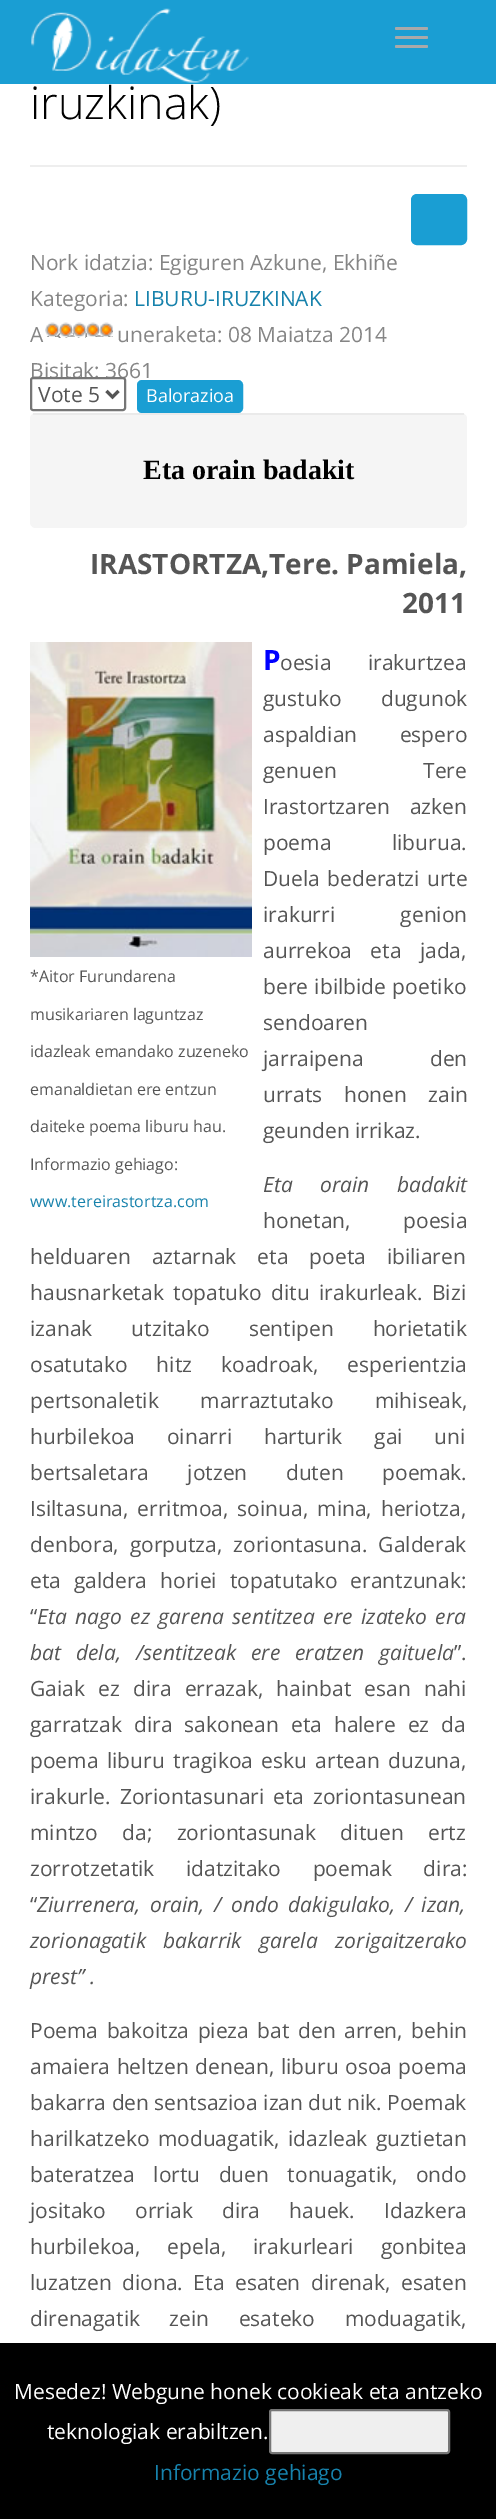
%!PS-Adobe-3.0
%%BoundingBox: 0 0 496 2519
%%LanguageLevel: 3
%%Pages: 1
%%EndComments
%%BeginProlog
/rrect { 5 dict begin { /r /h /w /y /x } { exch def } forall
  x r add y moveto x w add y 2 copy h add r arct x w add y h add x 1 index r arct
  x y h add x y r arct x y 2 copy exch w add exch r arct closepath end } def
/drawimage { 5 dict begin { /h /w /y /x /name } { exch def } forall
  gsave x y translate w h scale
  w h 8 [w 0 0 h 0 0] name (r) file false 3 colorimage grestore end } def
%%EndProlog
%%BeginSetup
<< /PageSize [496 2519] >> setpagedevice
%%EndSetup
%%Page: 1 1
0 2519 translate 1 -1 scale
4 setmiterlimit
1 setgray
0 0 496 2519 rectfill
0.102 0.62 0.827 setrgbcolor
0 0 496 84 rectfill
(images/1.raw) 31 8 218 75 drawimage
0.663 setgray
395 27 33 3 1.5 rrect fill
395 36 33 3 1.5 rrect fill
395 45 33 3 1.5 rrect fill
0.933 setgray
30 165 437 2 rectfill
0.102 0.62 0.827 setrgbcolor
412 195 54 49 5 rrect gsave fill grestore
2 setlinewidth
stroke
(images/2.raw) 45 322 14 15 drawimage
(images/3.raw) 58 322 14 16 drawimage
(images/4.raw) 72 322 14 16 drawimage
(images/5.raw) 85 322 14 15 drawimage
(images/6.raw) 99 322 14 15 drawimage
138 381 104 31 4 rrect gsave fill grestore
stroke
0.961 setgray
30 413 437 115 6 rrect fill
0.918 setgray
33 413 431 2 rectfill
(images/7.raw) 30 642 222 315 drawimage
0 setgray
0 2343 496 176 rectfill
0.937 setgray
270 2410 179 43 2 rrect gsave fill grestore
0.463 setgray
stroke
/OpenSans-Light [45 0 0 -45 0 0] selectfont
0 setgray
30 119 moveto (iruzkinak\)) show
/OpenSans-Regular [21 0 0 -21 0 0] selectfont
0.522 setgray
30 270 moveto (Nork idatzia: Egiguren Azkune, Ekhiñe) show
30 306 moveto (Kategoria:) show
0.09 0.51 0.675 setrgbcolor
134 306 moveto (LIBURU-IRUZKINAK) show
0.522 setgray
30 342 moveto (A) show
117 342 moveto (uneraketa: 08 Maiatza 2014) show
30 378 moveto (Bisitak: 3661) show
1 setgray
31 378 94 32 2 rrect gsave fill grestore
0.463 setgray
stroke
0.333 setgray
3 setlinewidth
newpath 106.5 391 moveto 112.5 397 lineto 118.5 391 lineto stroke
38 402 moveto (Vote 5) show
/OpenSans-Regular [18 0 0 -18 0 0] selectfont
1 setgray
146 402 moveto (Balorazioa) show
/LiberationSerif-Bold [28 0 0 -28 0 0] selectfont
0 setgray
143 479 moveto (Eta orain badakit) show
/OpenSans-Bold [28 0 0 -28 0 0] selectfont
0.333 setgray
90 574 moveto (IRASTORTZA,Tere. Pamiela,) show
402 613 moveto (2011) show
/OpenSans-Regular [16 0 0 -16 0 0] selectfont
30 982 moveto (*Aitor Furundarena) show
30 1020 moveto (musikariaren laguntzaz) show
30 1057 moveto (idazleak emandako zuzeneko) show
30 1095 moveto (emanaldietan ere entzun) show
30 1132 moveto (daiteke poema liburu hau.) show
30 1170 moveto (Informazio gehiago:) show
0.09 0.51 0.675 setrgbcolor
30 1207 moveto (www.tereirastortza.com) show
/OpenSans-Bold [28 0 0 -28 0 0] selectfont
0 0 1 setrgbcolor
263 670 moveto (P) show
/OpenSans-Regular [21 0 0 -21 0 0] selectfont
0.333 setgray
280 670 moveto 31 0 32 (oesia irakurtzea) widthshow
263 706 moveto 34 0 32 (gustuko dugunok) widthshow
263 742 moveto 37 0 32 (aspaldian espero) widthshow
263 778 moveto 81 0 32 (genuen Tere) widthshow
263 814 moveto 14 0 32 (Irastortzaren azken) widthshow
263 850 moveto 55 0 32 (poema liburua.) widthshow
263 886 moveto 2 0 32 (Duela bederatzi urte) widthshow
263 922 moveto 60 0 32 (irakurri genion) widthshow
263 958 moveto 13 0 32 (aurrekoa eta jada,) widthshow
263 994 moveto 1 0 32 (bere ibilbide poetiko) widthshow
263 1030 moveto (sendoaren) show
263 1066 moveto 61 0 32 (jarraipena den) widthshow
263 1102 moveto 16 0 32 (urrats honen zain) widthshow
263 1138 moveto (geunden irrikaz.) show
/OpenSans-Italic [21 0 0 -21 0 0] selectfont
263 1192 moveto 22 0 32 (Eta orain badakit) widthshow
/OpenSans-Regular [21 0 0 -21 0 0] selectfont
263 1228 moveto 47 0 32 (honetan, poesia) widthshow
30 1264 moveto 15.5 0 32 (helduaren aztarnak eta poeta ibiliaren) widthshow
30 1300 moveto 4 0 32 (hausnarketak topatuko ditu irakurleak. Bizi) widthshow
30 1336 moveto 33.5 0 32 (izanak utzitako sentipen horietatik) widthshow
30 1372 moveto 23.5 0 32 (osatutako hitz koadroak, esperientzia) widthshow
30 1408 moveto 36 0 32 (pertsonaletik marraztutako mihiseak,) widthshow
30 1444 moveto 26.5 0 32 (hurbilekoa oinarri harturik gai uni) widthshow
30 1480 moveto 33 0 32 (bertsaletara jotzen duten poemak.) widthshow
30 1516 moveto 3.5 0 32 (Isiltasuna, erritmoa, soinua, mina, heriotza,) widthshow
30 1552 moveto 5.5 0 32 (denbora, gorputza, zoriontasuna. Galderak) widthshow
30 1588 moveto 7.5 0 32 (eta galdera horiei topatutako erantzunak:) widthshow
30 1624 moveto (“) show
/OpenSans-Italic [21 0 0 -21 0 0] selectfont
37 1624 moveto 3 0 32 (Eta nago ez garena sentitzea ere izateko era) widthshow
30 1660 moveto 9.5 0 32 (bat dela, /sentitzeak ere eratzen gaituela) widthshow
/OpenSans-Regular [21 0 0 -21 0 0] selectfont
454 1660 moveto (”.) show
30 1696 moveto 7.75 0 32 (Gaiak ez dira errazak, hainbat esan nahi) widthshow
30 1732 moveto 6.5 0 32 (garratzak dira sakonean eta halere ez da) widthshow
30 1768 moveto 3 0 32 (poema liburu tragikoa esku artean duzuna,) widthshow
30 1804 moveto 3.5 0 32 (irakurle. Zoriontasunari eta zoriontasunean) widthshow
30 1840 moveto 19 0 32 (mintzo da; zoriontasunak dituen ertz) widthshow
30 1876 moveto 26 0 32 (zorrotzetatik idatzitako poemak dira:) widthshow
30 1912 moveto (“) show
/OpenSans-Italic [21 0 0 -21 0 0] selectfont
37 1912 moveto 4 0 32 (Ziurrenera, orain, / ondo dakigulako, / izan,) widthshow
30 1948 moveto 12 0 32 (zorionagatik bakarrik garela zorigaitzerako) widthshow
30 1984 moveto (prest” .) show
/OpenSans-Regular [21 0 0 -21 0 0] selectfont
30 2038 moveto 3 0 32 (Poema bakoitza pieza bat den arren, behin) widthshow
30 2074 moveto 1 0 32 (amaiera heltzen denean, liburu osoa poema) widthshow
30 2110 moveto (bakarra den sentsazioa izan dut nik. Poemak) show
30 2146 moveto 3 0 32 (harilkatzeko moduagatik, idazleak guztietan) widthshow
30 2182 moveto 13 0 32 (bateratzea lortu duen tonuagatik, ondo) widthshow
30 2218 moveto 23.5 0 32 (jositako orriak dira hauek. Idazkera) widthshow
30 2254 moveto 21.5 0 32 (hurbilekoa, epela, irakurleari gonbitea) widthshow
30 2290 moveto 5 0 32 (luzatzen diona. Eta esaten direnak, esaten) widthshow
30 2326 moveto 24 0 32 (direnagatik zein esateko moduagatik,) widthshow
1 setgray
14 2399 moveto (Mesedez! Webgune honek cookieak eta antzeko) show
47 2439 moveto (teknologiak erabiltzen.) show
0.09 0.51 0.675 setrgbcolor
154 2480 moveto (Informazio gehiago) show
showpage
%%EOF
